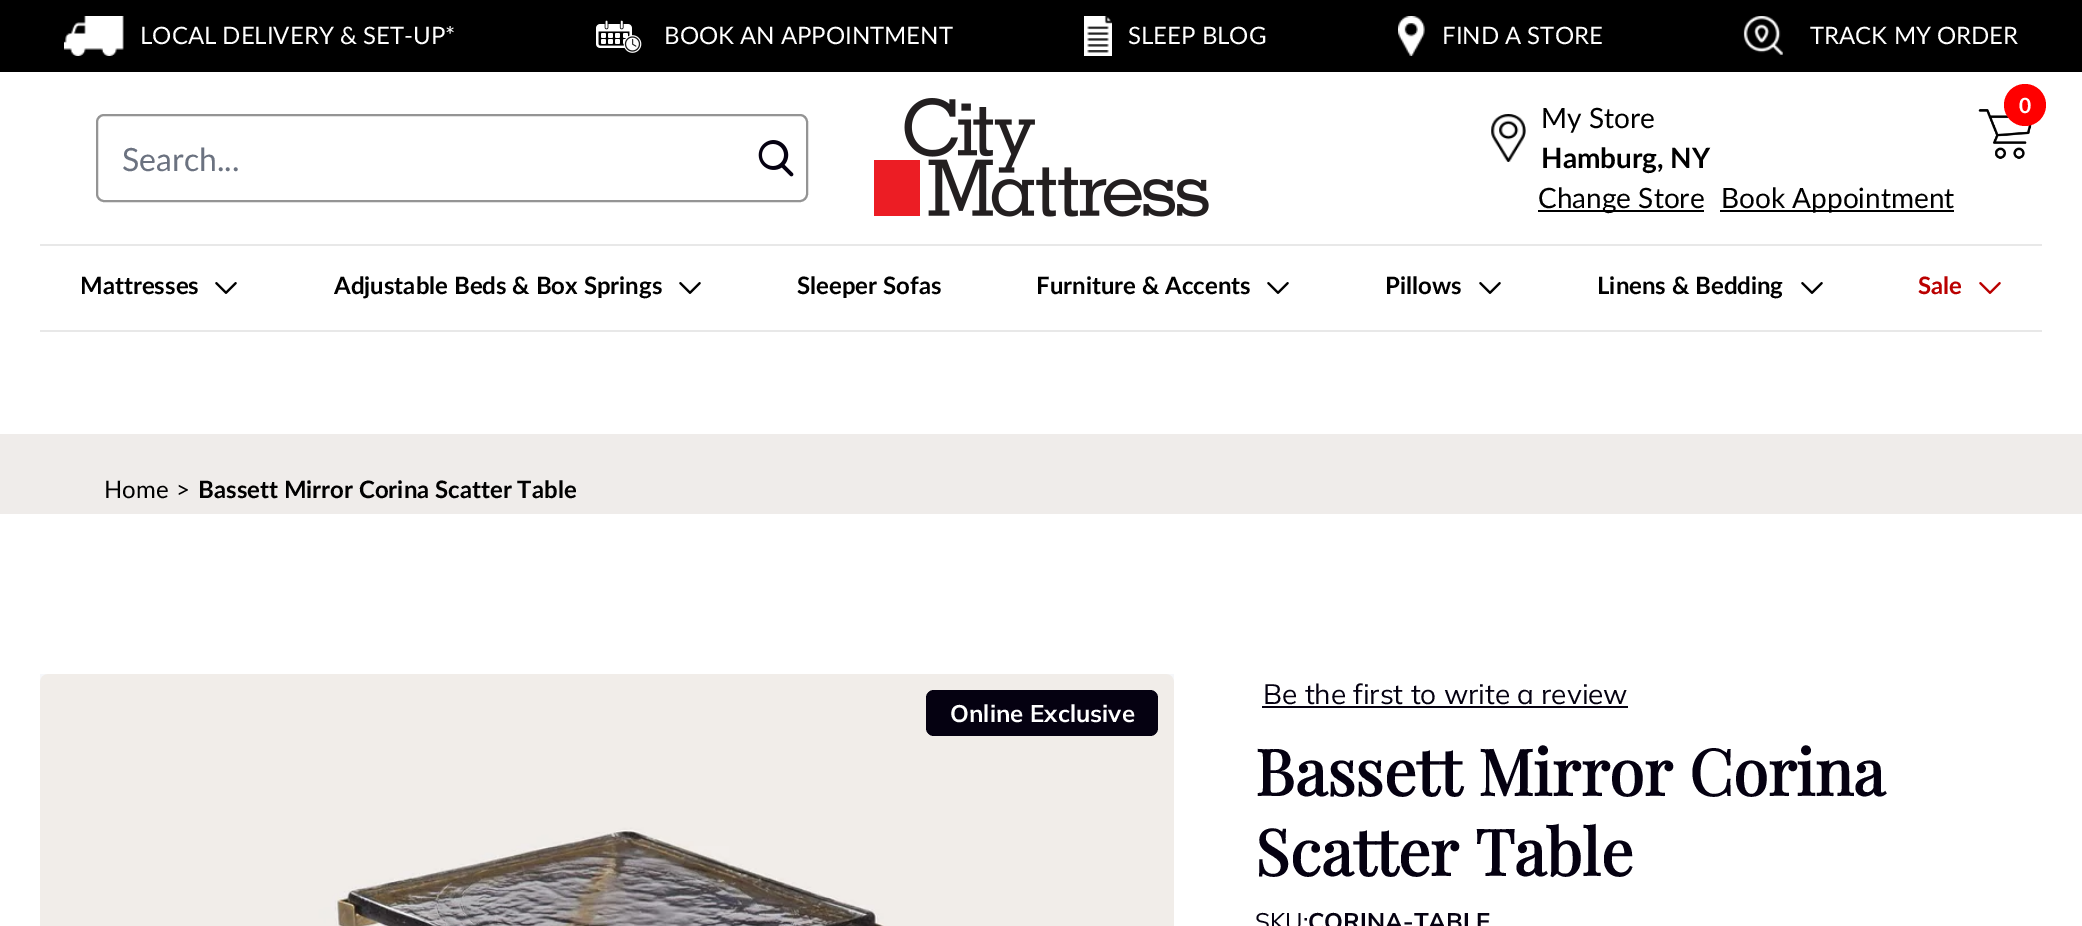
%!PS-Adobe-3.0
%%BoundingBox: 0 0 2082 926
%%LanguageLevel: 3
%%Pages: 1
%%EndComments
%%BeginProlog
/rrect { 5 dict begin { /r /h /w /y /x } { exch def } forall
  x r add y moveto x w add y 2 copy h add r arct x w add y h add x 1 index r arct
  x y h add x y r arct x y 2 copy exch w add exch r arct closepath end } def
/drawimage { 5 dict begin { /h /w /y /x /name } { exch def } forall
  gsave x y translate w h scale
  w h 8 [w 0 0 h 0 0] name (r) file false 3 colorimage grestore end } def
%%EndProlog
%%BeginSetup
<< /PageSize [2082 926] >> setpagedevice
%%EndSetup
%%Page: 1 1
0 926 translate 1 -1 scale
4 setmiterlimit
1 setgray
0 0 2082 926 rectfill
0 setgray
0 0 2082 72 rectfill
(images/1.raw) 64 16 60 40 drawimage
(images/2.raw) 596 20 46 33 drawimage
(images/3.raw) 1084 16 28 40 drawimage
(images/4.raw) 1398 16 27 40 drawimage
(images/5.raw) 1743 16 40 39 drawimage
0.58 setgray
2 setlinewidth
97 115 710 86 7 rrect stroke
(images/6.raw) 758 140 36 37 drawimage
(images/7.raw) 874 98 335 119 drawimage
(images/8.raw) 1491 114 35 48 drawimage
0 setgray
1538 210 166 2 rectfill
1720 210 234 2 rectfill
(images/9.raw) 1978 109 54 50 drawimage
1 0 0 setrgbcolor
newpath 2025 105 21 0 360 arc closepath fill
0.91 setgray
40 244 2002 2 rectfill
40 330 2002 2 rectfill
(images/10.raw) 215 282 22 12 drawimage
(images/10.raw) 679 282 22 12 drawimage
(images/10.raw) 1267 282 22 12 drawimage
(images/10.raw) 1479 282 22 12 drawimage
(images/10.raw) 1801 282 22 12 drawimage
(images/11.raw) 1979 282 22 12 drawimage
0.937 0.925 0.918 setrgbcolor
0 434 2082 80 rectfill
0.965 0.969 0.98 setrgbcolor
40 674 1134 8 rectfill
(images/12.raw) 40 674 1134 252 drawimage
0.02 0.004 0.067 setrgbcolor
926 690 232 46 8 rrect fill
1262 706 366 2 rectfill
/Lato-Regular [24 0 0 -24 0 0] selectfont
1 setgray
140 44 moveto (LOCAL DELIVERY & SET-UP*) show
664 44 moveto (BOOK AN APPOINTMENT) show
1128 44 moveto (SLEEP BLOG) show
1442 44 moveto (FIND A STORE) show
1810 44 moveto (TRACK MY ORDER) show
/Lato-Regular [32 0 0 -32 0 0] selectfont
0.42 0.447 0.502 setrgbcolor
122 171 moveto (Search...) show
/Lato-Regular [28 0 0 -28 0 0] selectfont
0 setgray
1541 128 moveto (My Store) show
/Lato-Bold [28 0 0 -28 0 0] selectfont
1541 168 moveto (Hamburg, NY) show
/Lato-Regular [28 0 0 -28 0 0] selectfont
1538 208 moveto (Change Store) show
1721 208 moveto (Book Appointment) show
/Lato-Bold [21 0 0 -21 0 0] selectfont
1 setgray
2019 113 moveto (0) show
/Lato-Bold [24 0 0 -24 0 0] selectfont
0 setgray
80 294 moveto (Mattresses) show
334 294 moveto (Adjustable Beds & Box Springs) show
797 294 moveto (Sleeper Sofas) show
1036 294 moveto (Furniture & Accents) show
1385 294 moveto (Pillows) show
1597 294 moveto (Linens & Bedding) show
0.729 0 0 setrgbcolor
1918 294 moveto (Sale) show
/Lato-Regular [24 0 0 -24 0 0] selectfont
0 setgray
104 498 moveto (Home) show
176 498 moveto (>) show
/Lato-Bold [24 0 0 -24 0 0] selectfont
198 498 moveto (Bassett Mirror Corina Scatter Table) show
/Mulish-Bold [24 0 0 -24 0 0] selectfont
1 setgray
950 722 moveto (Online Exclusive) show
/Mulish-Regular [28 0 0 -28 0 0] selectfont
0.02 0.004 0.067 setrgbcolor
1263 704 moveto (Be the first to write a review) show
/PlayfairDisplay-Bold [64 0 0 -64 0 0] selectfont
1255 796 moveto (Bassett Mirror Corina) show
1255 876 moveto (Scatter Table) show
/Mulish-Regular [24 0 0 -24 0 0] selectfont
1255 930 moveto (SKU:) show
/Mulish-Bold [24 0 0 -24 0 0] selectfont
1308 930 moveto (CORINA-TABLE) show
showpage
%%EOF
